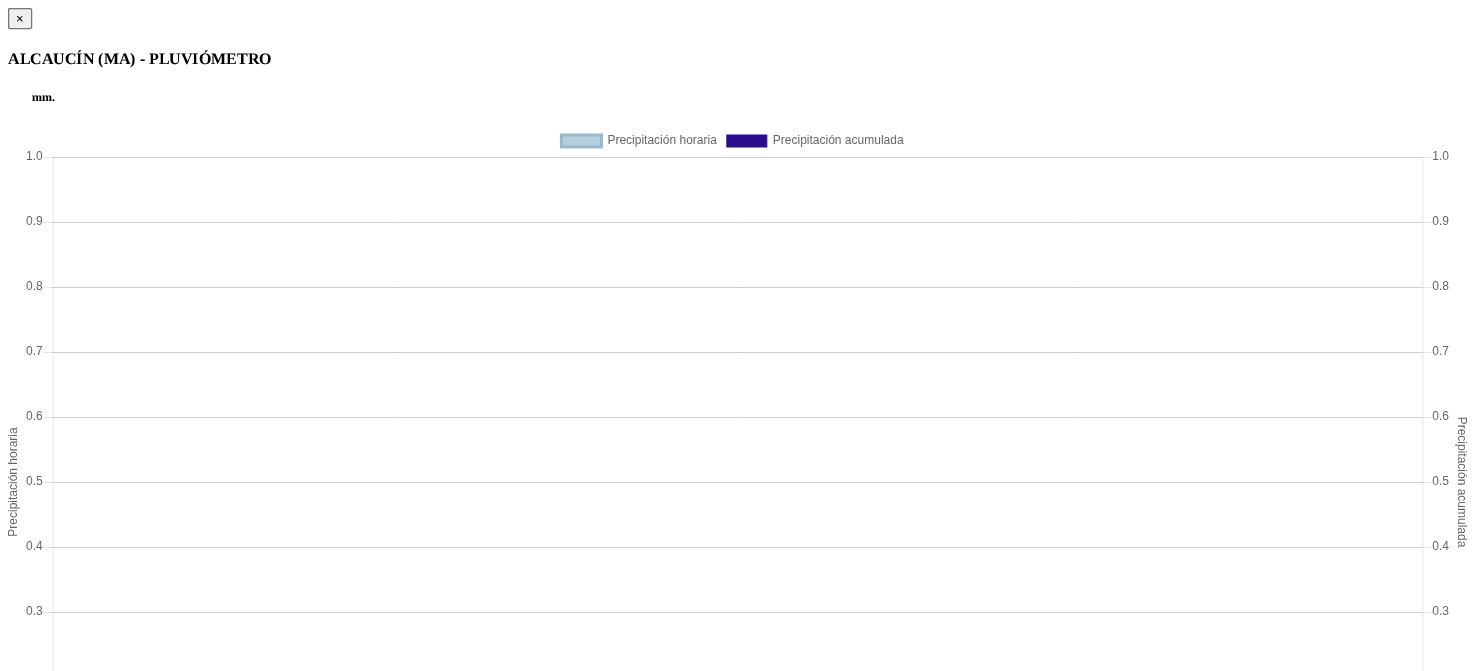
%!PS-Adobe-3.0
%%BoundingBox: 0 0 1475 671
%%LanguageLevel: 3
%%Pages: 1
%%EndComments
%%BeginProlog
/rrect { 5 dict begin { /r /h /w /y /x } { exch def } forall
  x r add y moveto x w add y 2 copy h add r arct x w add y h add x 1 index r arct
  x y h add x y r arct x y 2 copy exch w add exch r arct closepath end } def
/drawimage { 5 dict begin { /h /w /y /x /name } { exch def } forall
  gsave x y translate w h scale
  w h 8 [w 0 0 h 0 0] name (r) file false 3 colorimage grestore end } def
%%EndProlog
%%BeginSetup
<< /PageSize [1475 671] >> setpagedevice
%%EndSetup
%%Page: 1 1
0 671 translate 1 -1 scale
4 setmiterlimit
1 setgray
0 0 1475 671 rectfill
0.937 setgray
8.5 8.5 23 20 1.5 rrect gsave fill grestore
0.463 setgray
stroke
(images/1.raw) 8 133 1459 538 drawimage
/LiberationSans-Regular [13 0 0 -13 0 0] selectfont
0 setgray
16 23 moveto (×) show
/LiberationSerif-Bold [16 0 0 -16 0 0] selectfont
8 64 moveto (ALCAUCÍN \(MA\) - PLUVIÓMETRO) show
/LiberationSerif-Bold [12 0 0 -12 0 0] selectfont
32 101 moveto (mm.) show
showpage
%%EOF
